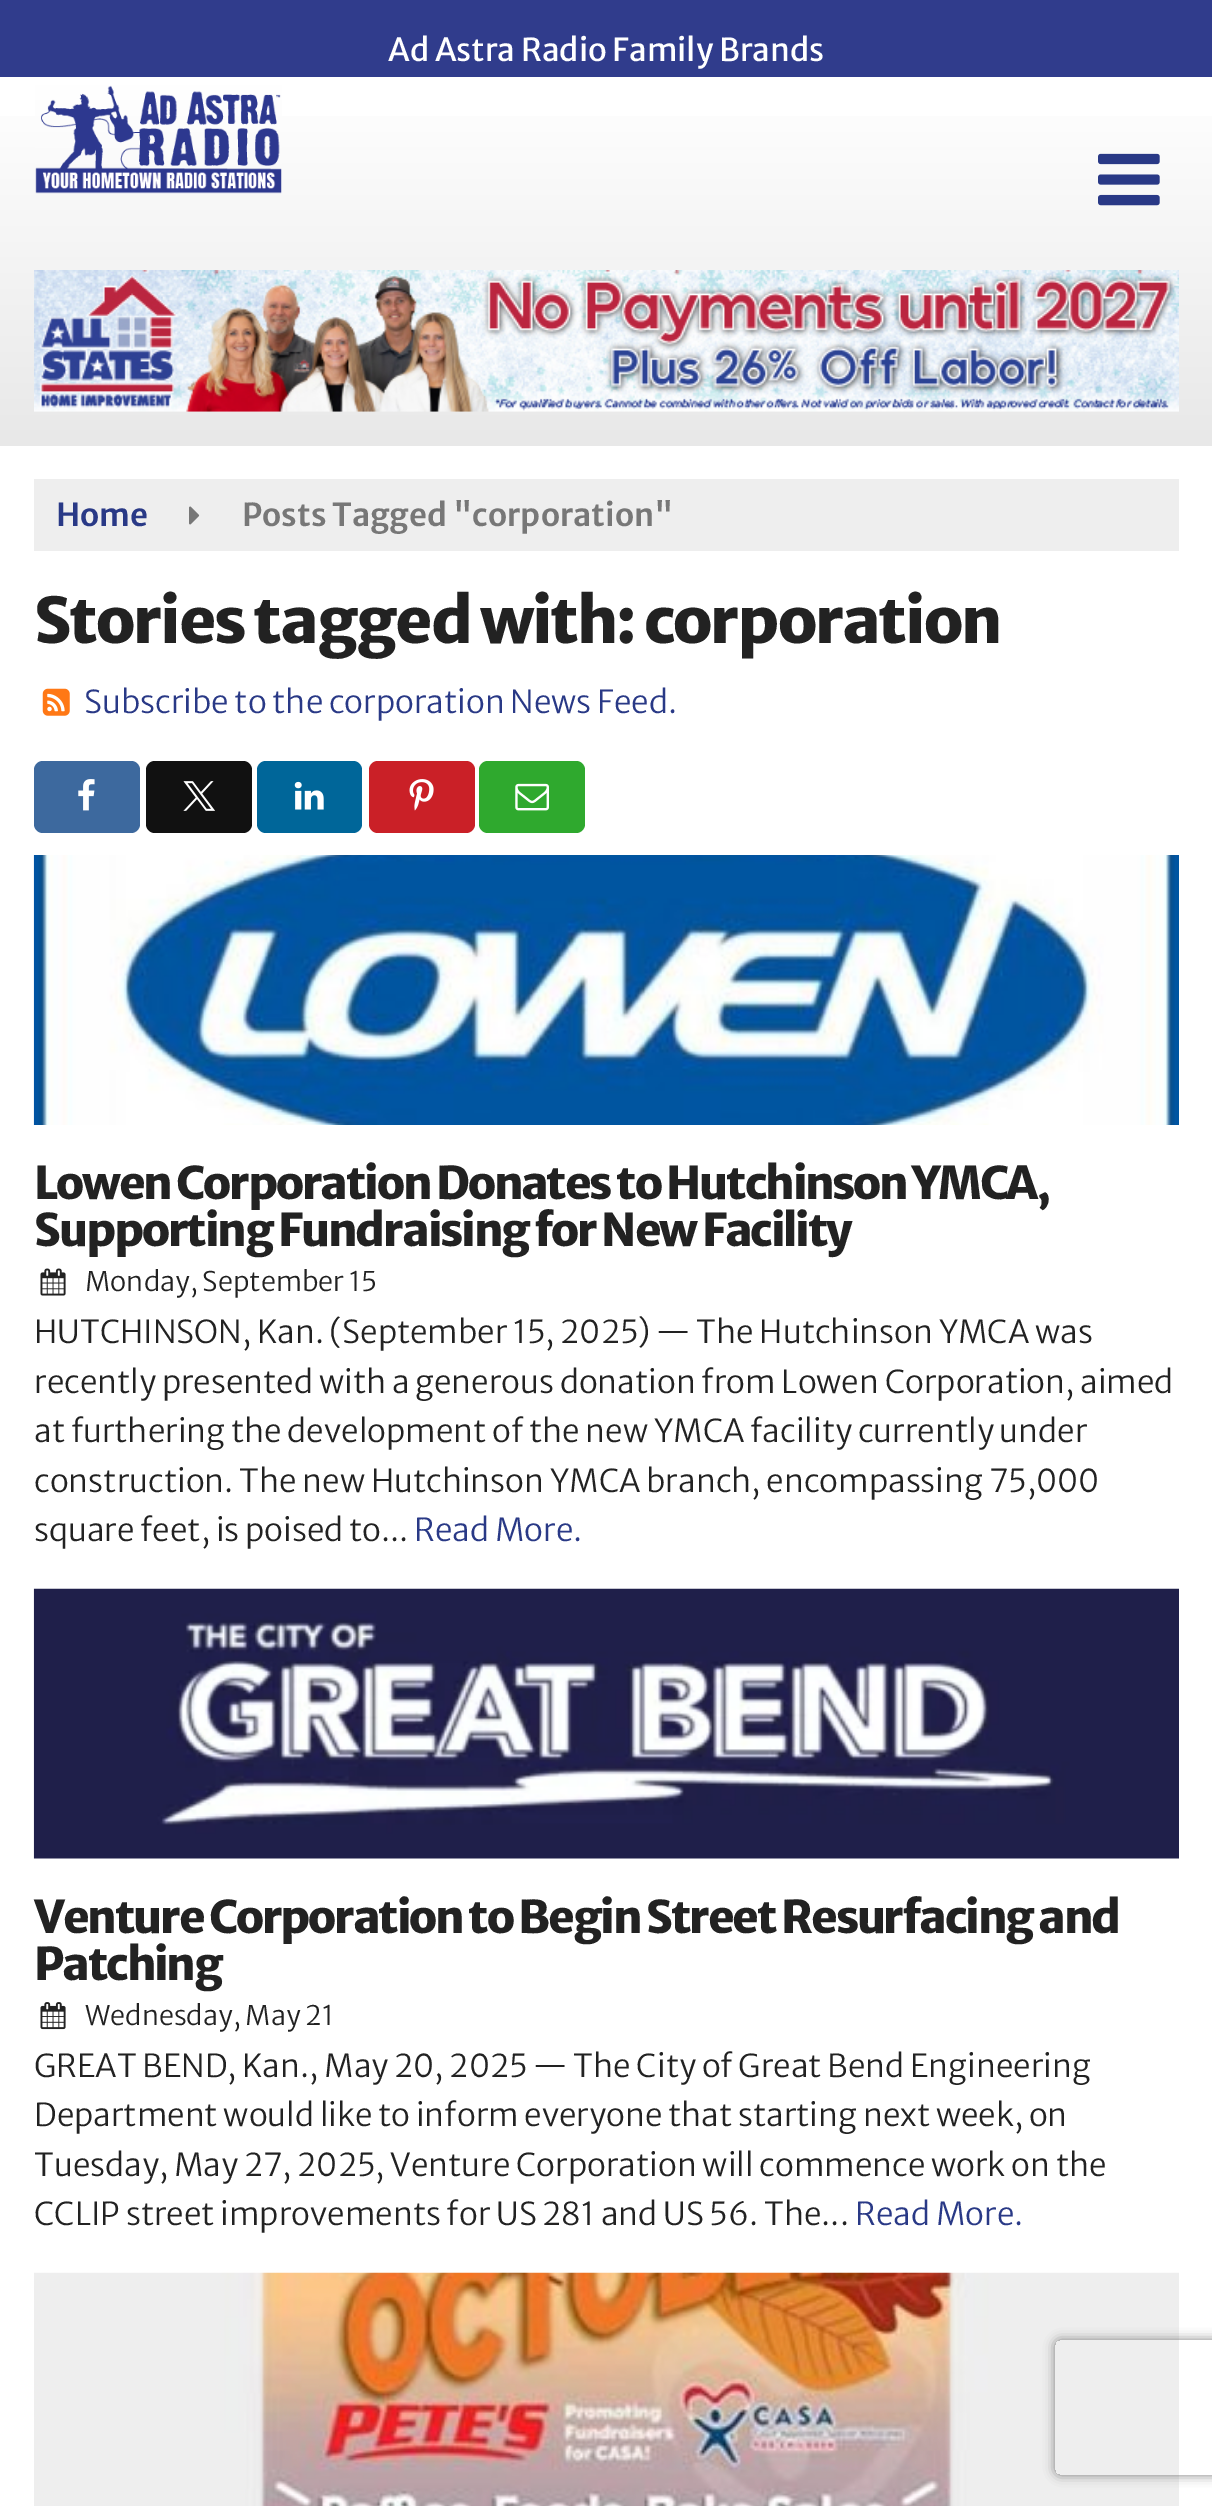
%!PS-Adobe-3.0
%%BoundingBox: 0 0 1212 2506
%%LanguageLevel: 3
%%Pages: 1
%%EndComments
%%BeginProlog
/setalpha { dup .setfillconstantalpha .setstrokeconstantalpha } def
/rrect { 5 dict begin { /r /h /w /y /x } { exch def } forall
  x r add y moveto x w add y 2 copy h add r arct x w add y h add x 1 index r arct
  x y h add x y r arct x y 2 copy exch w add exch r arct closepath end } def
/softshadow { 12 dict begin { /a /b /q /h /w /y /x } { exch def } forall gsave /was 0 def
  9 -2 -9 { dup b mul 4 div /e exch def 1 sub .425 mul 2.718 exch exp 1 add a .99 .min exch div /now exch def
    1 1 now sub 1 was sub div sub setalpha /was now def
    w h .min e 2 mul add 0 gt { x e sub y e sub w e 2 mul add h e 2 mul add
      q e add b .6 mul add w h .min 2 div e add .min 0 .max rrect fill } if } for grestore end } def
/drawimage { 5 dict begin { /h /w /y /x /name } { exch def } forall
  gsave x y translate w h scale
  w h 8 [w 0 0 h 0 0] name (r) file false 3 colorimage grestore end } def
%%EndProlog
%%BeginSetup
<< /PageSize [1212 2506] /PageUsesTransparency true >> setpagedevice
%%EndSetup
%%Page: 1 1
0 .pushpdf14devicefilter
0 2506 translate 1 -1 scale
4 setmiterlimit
1 setgray
0 0 1212 2506 rectfill
0.188 0.235 0.549 setrgbcolor
0 0 1212 77 rectfill
gsave newpath 0 116 moveto 1212 116 lineto 1212 446 lineto 0 446 lineto closepath clip newpath
<< /ShadingType 2 /ColorSpace /DeviceRGB /Coords [606 76 606 446] /Extend [true true] /Function << /FunctionType 2 /Domain [0 1] /C0 [1 1 1] /C1 [0.91 0.91 0.91] /N 1 >> >> shfill grestore
(images/1.raw) 35 85 247 109 drawimage
(images/2.raw) 34 270 1145 142 drawimage
(images/3.raw) 1098 153 62 53 drawimage
0.933 setgray
34 479 1145 72 rectfill
(images/4.raw) 189 506 11 19 drawimage
(images/5.raw) 42 688 28 28 drawimage
0.239 0.412 0.62 setrgbcolor
34 761 106 72 9 rrect fill
(images/6.raw) 78 779 17 32 drawimage
0.067 setgray
146 761 106 72 9 rrect fill
(images/7.raw) 183 781 32 30 drawimage
0 0.4 0.6 setrgbcolor
257 761 105 72 9 rrect fill
(images/8.raw) 294 781 30 29 drawimage
0.792 0.125 0.153 setrgbcolor
369 761 106 72 9 rrect fill
(images/9.raw) 409 779 25 32 drawimage
0.184 0.663 0.18 setrgbcolor
479 761 106 72 9 rrect fill
(images/10.raw) 515 783 34 28 drawimage
(images/11.raw) 33 855 1146 270 drawimage
(images/12.raw) 40 1268 26 28 drawimage
(images/13.raw) 33 1588 1146 271 drawimage
(images/14.raw) 40 2002 26 28 drawimage
(images/15.raw) 34 2272 1145 234 drawimage
gsave
newpath 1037 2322 moveto 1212 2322 lineto 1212 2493 lineto 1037 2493 lineto closepath 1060 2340 moveto 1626 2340 lineto 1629 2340 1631 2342 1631 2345 curveto 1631 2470 lineto 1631 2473 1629 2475 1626 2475 curveto 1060 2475 lineto 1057 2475 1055 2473 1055 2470 curveto 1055 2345 lineto 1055 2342 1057 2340 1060 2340 curveto closepath eoclip newpath
0.502 setgray
1055 2340 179 135 5 5.5 1 softshadow
grestore
/MerriweatherSans-Regular [31.5 0 0 -31.5 0 0] selectfont
1 setgray
388 61 moveto (Ad Astra Radio Family Brands) show
/MerriweatherSans-SemiBold [31.5 0 0 -31.5 0 0] selectfont
0.161 0.224 0.525 setrgbcolor
56 526 moveto (Home) show
0.467 setgray
242 526 moveto (Posts Tagged "corporation") show
/MerriweatherSans-ExtraBold [63 0 0 -63 0 0] selectfont
0.133 setgray
34 643 moveto -2.25 0 (Stories tagged with: corporation) ashow
/MerriweatherSans-Light [31.5 0 0 -31.5 0 0] selectfont
0.161 0.224 0.525 setrgbcolor
84 713 moveto (Subscribe to the corporation News Feed.) show
/MerriweatherSans-ExtraBold [45 0 0 -45 0 0] selectfont
0.133 setgray
34 1199 moveto -2.25 0 (Lowen Corporation Donates to Hutchinson YMCA,) ashow
34 1246 moveto -2.25 0 (Supporting Fundraising for New Facility) ashow
/MerriweatherSans-Light [27 0 0 -27 0 0] selectfont
85 1291 moveto (Monday, September 15) show
/MerriweatherSans-Light [31.5 0 0 -31.5 0 0] selectfont
34 1343 moveto (HUTCHINSON, Kan. \(September 15, 2025\) — The Hutchinson YMCA was) show
34 1393 moveto (recently presented with a generous donation from Lowen Corporation, aimed) show
34 1442 moveto (at furthering the development of the new YMCA facility currently under) show
34 1492 moveto (construction. The new Hutchinson YMCA branch, encompassing 75,000) show
34 1541 moveto (square feet, is poised to...) show
0.161 0.224 0.525 setrgbcolor
414 1541 moveto (Read More.) show
/MerriweatherSans-ExtraBold [45 0 0 -45 0 0] selectfont
0.133 setgray
34 1933 moveto -2.25 0 (Venture Corporation to Begin Street Resurfacing and) ashow
34 1980 moveto -2.25 0 (Patching) ashow
/MerriweatherSans-Light [27 0 0 -27 0 0] selectfont
85 2025 moveto (Wednesday, May 21) show
/MerriweatherSans-Light [31.5 0 0 -31.5 0 0] selectfont
34 2077 moveto (GREAT BEND, Kan., May 20, 2025 — The City of Great Bend Engineering) show
34 2126 moveto (Department would like to inform everyone that starting next week, on) show
34 2176 moveto (Tuesday, May 27, 2025, Venture Corporation will commence work on the) show
34 2225 moveto (CCLIP street improvements for US 281 and US 56. The...) show
0.161 0.224 0.525 setrgbcolor
855 2225 moveto (Read More.) show
.poppdf14devicefilter showpage
%%EOF
